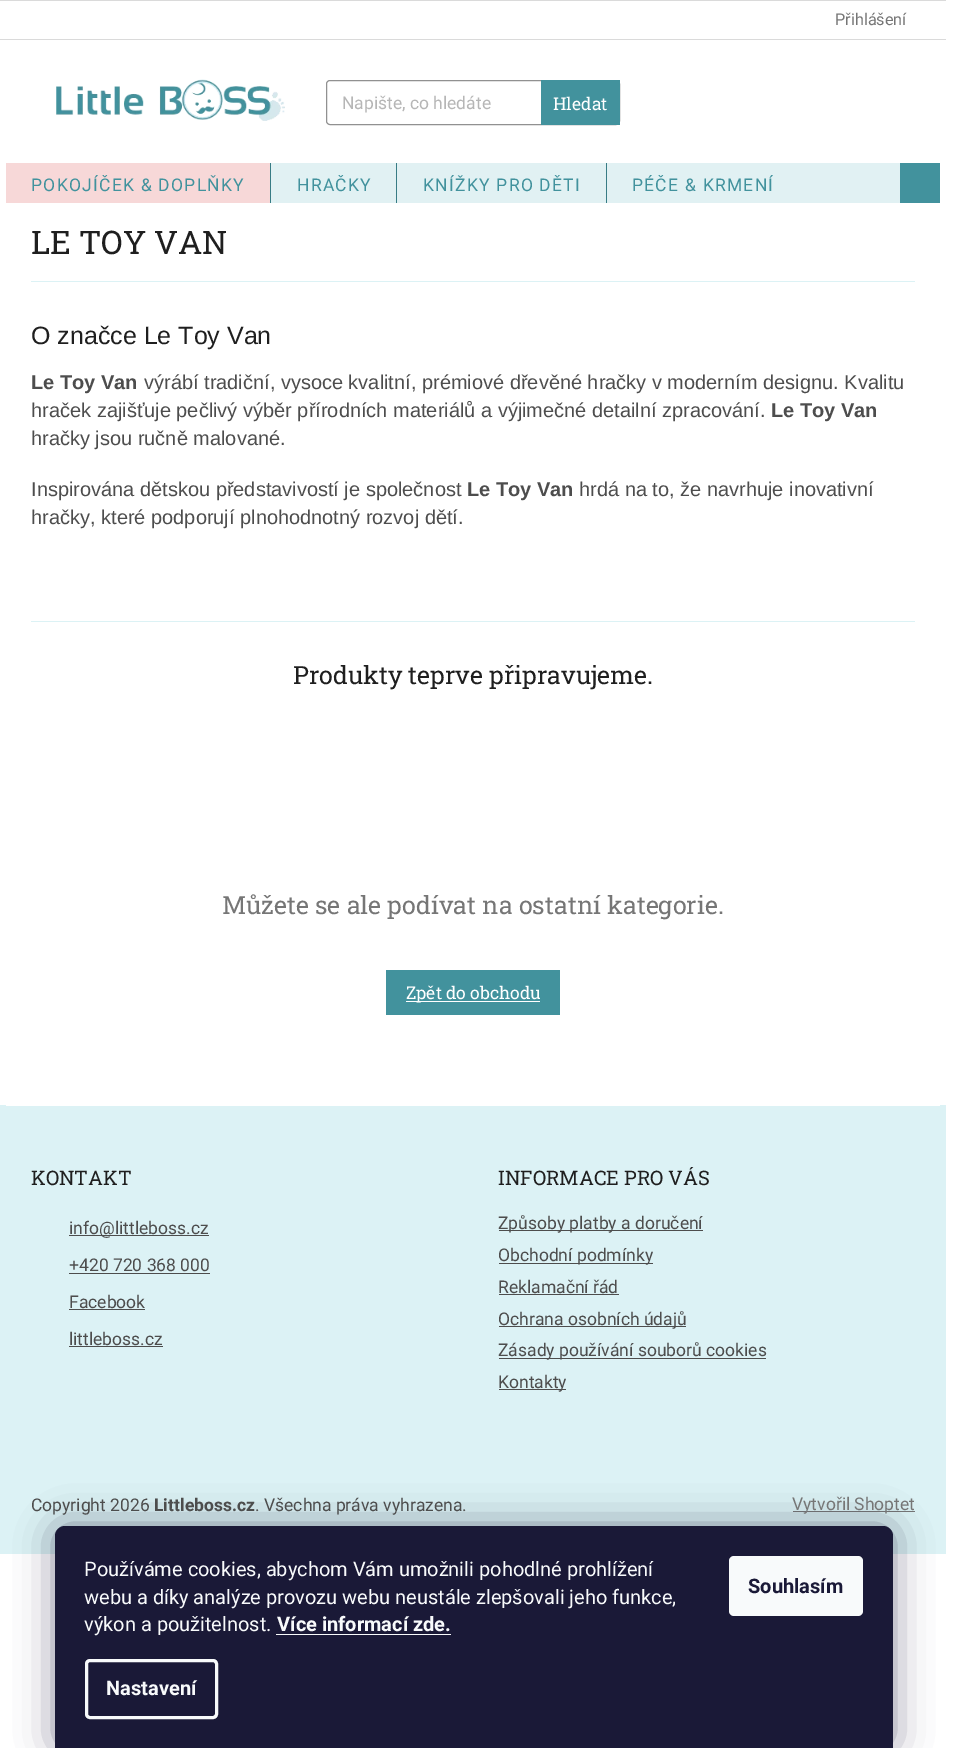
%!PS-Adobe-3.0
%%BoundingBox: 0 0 964 1748
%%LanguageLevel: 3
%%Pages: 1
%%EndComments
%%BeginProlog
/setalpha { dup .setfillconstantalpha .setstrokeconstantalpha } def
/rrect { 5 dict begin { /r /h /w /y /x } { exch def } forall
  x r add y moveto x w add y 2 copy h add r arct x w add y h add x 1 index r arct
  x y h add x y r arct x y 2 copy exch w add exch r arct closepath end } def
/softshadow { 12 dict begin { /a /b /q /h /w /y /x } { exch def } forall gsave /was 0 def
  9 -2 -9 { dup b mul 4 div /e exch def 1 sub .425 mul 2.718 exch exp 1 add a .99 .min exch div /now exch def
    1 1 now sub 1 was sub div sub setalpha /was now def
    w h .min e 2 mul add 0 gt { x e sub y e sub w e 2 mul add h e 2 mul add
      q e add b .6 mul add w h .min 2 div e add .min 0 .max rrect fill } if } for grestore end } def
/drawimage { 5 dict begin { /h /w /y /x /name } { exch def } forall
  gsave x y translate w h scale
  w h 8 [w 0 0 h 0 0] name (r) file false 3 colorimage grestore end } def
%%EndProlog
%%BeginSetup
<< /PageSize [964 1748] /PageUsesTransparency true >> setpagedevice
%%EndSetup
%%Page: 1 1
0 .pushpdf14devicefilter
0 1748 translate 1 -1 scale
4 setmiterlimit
1 setgray
0 0 964 1748 rectfill
0.855 setgray
0 0 946 1 rectfill
0 39 946 1 rectfill
(images/1.raw) 56 79 229 42 drawimage
0.569 setgray
326.5 80.5 293 44 3.5 rrect stroke
0.259 0.573 0.616 setrgbcolor
541 80 79 45 rectfill
0.882 0.945 0.953 setrgbcolor
271 163 629 40 rectfill
0.969 0.847 0.847 setrgbcolor
6 163 264 40 rectfill
0.22 0.486 0.522 setrgbcolor
270 163 1 40 rectfill
396 163 1 40 rectfill
606 163 1 40 rectfill
0.259 0.573 0.616 setrgbcolor
900 163 40 40 rectfill
0.863 0.949 0.961 setrgbcolor
31 281 884 1 rectfill
31 621 884 1 rectfill
0.259 0.573 0.616 setrgbcolor
386 970 174 45 rectfill
1 setgray
406 1001 134 1 rectfill
0.863 0.949 0.961 setrgbcolor
0 1105 946 449 rectfill
1 setgray
6 1105 934 1 rectfill
0.302 setgray
69 1235 140 1 rectfill
69 1273 141 1 rectfill
69 1309 76 1 rectfill
69 1346 94 1 rectfill
499 1230 204 1 rectfill
499 1263 154 1 rectfill
499 1294 120 1 rectfill
499 1326 187 1 rectfill
499 1358 267 1 rectfill
499 1389 67 1 rectfill
0.463 setgray
793 1511 122 1 rectfill
0.106 0.098 0.224 setrgbcolor
55 1526 838 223 10 19 0.5 softshadow
0.102 0.098 0.216 setrgbcolor
newpath 65 1526 moveto 883 1526 lineto 888.5 1526 893 1530.5 893 1536 curveto 893 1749 lineto 55 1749 lineto 55 1536 lineto 55 1530.5 59.5 1526 65 1526 curveto closepath fill
0.973 0.98 0.984 setrgbcolor
276 1634 175 1 rectfill
3 setlinewidth
86.5 1660.5 130 57 3.5 rrect stroke
729 1556 134 60 5 rrect fill
/Roboto-Regular [16.25 0 0 -16.25 0 0] selectfont
0.463 setgray
835 25 moveto (Přihlášení) show
/Roboto-Regular [17.5 0 0 -17.5 0 0] selectfont
0.714 setgray
342 109 moveto (Napište, co hledáte) show
/RobotoSlab-Regular [17.5 0 0 -17.5 0 0] selectfont
1 setgray
553 110 moveto (Hledat) show
/Roboto-Regular [17.5 0 0 -17.5 0 0] selectfont
0.259 0.573 0.616 setrgbcolor
31 191 moveto 1.25 0 (POKOJÍČEK & DOPLŇKY) ashow
297 191 moveto 1.25 0 (HRAČKY) ashow
423 191 moveto 1.25 0 (KNÍŽKY PRO DĚTI) ashow
632 191 moveto 1.25 0 (PÉČE & KRMENÍ) ashow
/RobotoSlab-Regular [32.5 0 0 -32.5 0 0] selectfont
0.122 setgray
31 254 moveto (LE TOY VAN) show
/LiberationSans-Regular [25 0 0 -25 0 0] selectfont
31 344 moveto (O značce Le Toy Van) show
/LiberationSans-Bold [20 0 0 -20 0 0] selectfont
0.302 setgray
31 389 moveto (Le Toy Van) show
/LiberationSans-Regular [20 0 0 -20 0 0] selectfont
144 389 moveto (výrábí tradiční, vysoce kvalitní, prémiové dřevěné hračky v moderním designu. Kvalitu) show
31 417 moveto (hraček zajišťuje pečlivý výběr přírodních materiálů a výjimečné detailní zpracování.) show
/LiberationSans-Bold [20 0 0 -20 0 0] selectfont
771 417 moveto (Le Toy Van) show
/LiberationSans-Regular [20 0 0 -20 0 0] selectfont
31 445 moveto (hračky jsou ručně malované.) show
31 496 moveto (Inspirována dětskou představivostí je společnost) show
/LiberationSans-Bold [20 0 0 -20 0 0] selectfont
467 496 moveto (Le Toy Van) show
/LiberationSans-Regular [20 0 0 -20 0 0] selectfont
579 496 moveto (hrdá na to, že navrhuje inovativní) show
31 524 moveto (hračky, které podporují plnohodnotný rozvoj dětí.) show
/RobotoSlab-Regular [25 0 0 -25 0 0] selectfont
0.122 setgray
293 684 moveto (Produkty teprve připravujeme.) show
0.463 setgray
222 914 moveto (Můžete se ale podívat na ostatní kategorie.) show
/RobotoSlab-Regular [17.5 0 0 -17.5 0 0] selectfont
1 setgray
406 999 moveto (Zpět do obchodu) show
/RobotoSlab-Regular [20 0 0 -20 0 0] selectfont
0.122 setgray
31 1185 moveto (KONTAKT) show
/Roboto-Regular [17.5 0 0 -17.5 0 0] selectfont
0.302 setgray
69 1234 moveto (info@littleboss.cz) show
69 1271 moveto (+420 720 368 000) show
69 1308 moveto (Facebook) show
69 1345 moveto (littleboss.cz) show
/RobotoSlab-Regular [20 0 0 -20 0 0] selectfont
0.122 setgray
498 1185 moveto (INFORMACE PRO VÁS) show
/Roboto-Regular [17.5 0 0 -17.5 0 0] selectfont
0.302 setgray
498 1229 moveto (Způsoby platby a doručení) show
498 1261 moveto (Obchodní podmínky) show
498 1293 moveto (Reklamační řád) show
498 1325 moveto (Ochrana osobních údajů) show
498 1356 moveto (Zásady používání souborů cookies) show
498 1388 moveto (Kontakty) show
31 1511 moveto (Copyright 2026) show
/Roboto-Bold [17.5 0 0 -17.5 0 0] selectfont
154 1511 moveto (Littleboss.cz) show
/Roboto-Regular [17.5 0 0 -17.5 0 0] selectfont
255 1511 moveto (. Všechna práva vyhrazena.) show
0.463 setgray
792 1510 moveto (Vytvořil Shoptet) show
/Roboto-Regular [20 0 0 -20 0 0] selectfont
0.973 0.98 0.984 setrgbcolor
84 1576 moveto (Používáme cookies, abychom Vám umožnili pohodlné prohlížení) show
84 1604 moveto (webu a díky analýze provozu webu neustále zlepšovali jeho funkce,) show
84 1631 moveto (výkon a použitelnost.) show
/Roboto-Bold [20 0 0 -20 0 0] selectfont
277 1631 moveto (Více informací zde.) show
106 1695 moveto (Nastavení) show
0.102 0.098 0.216 setrgbcolor
748 1593 moveto (Souhlasím) show
.poppdf14devicefilter showpage
%%EOF
